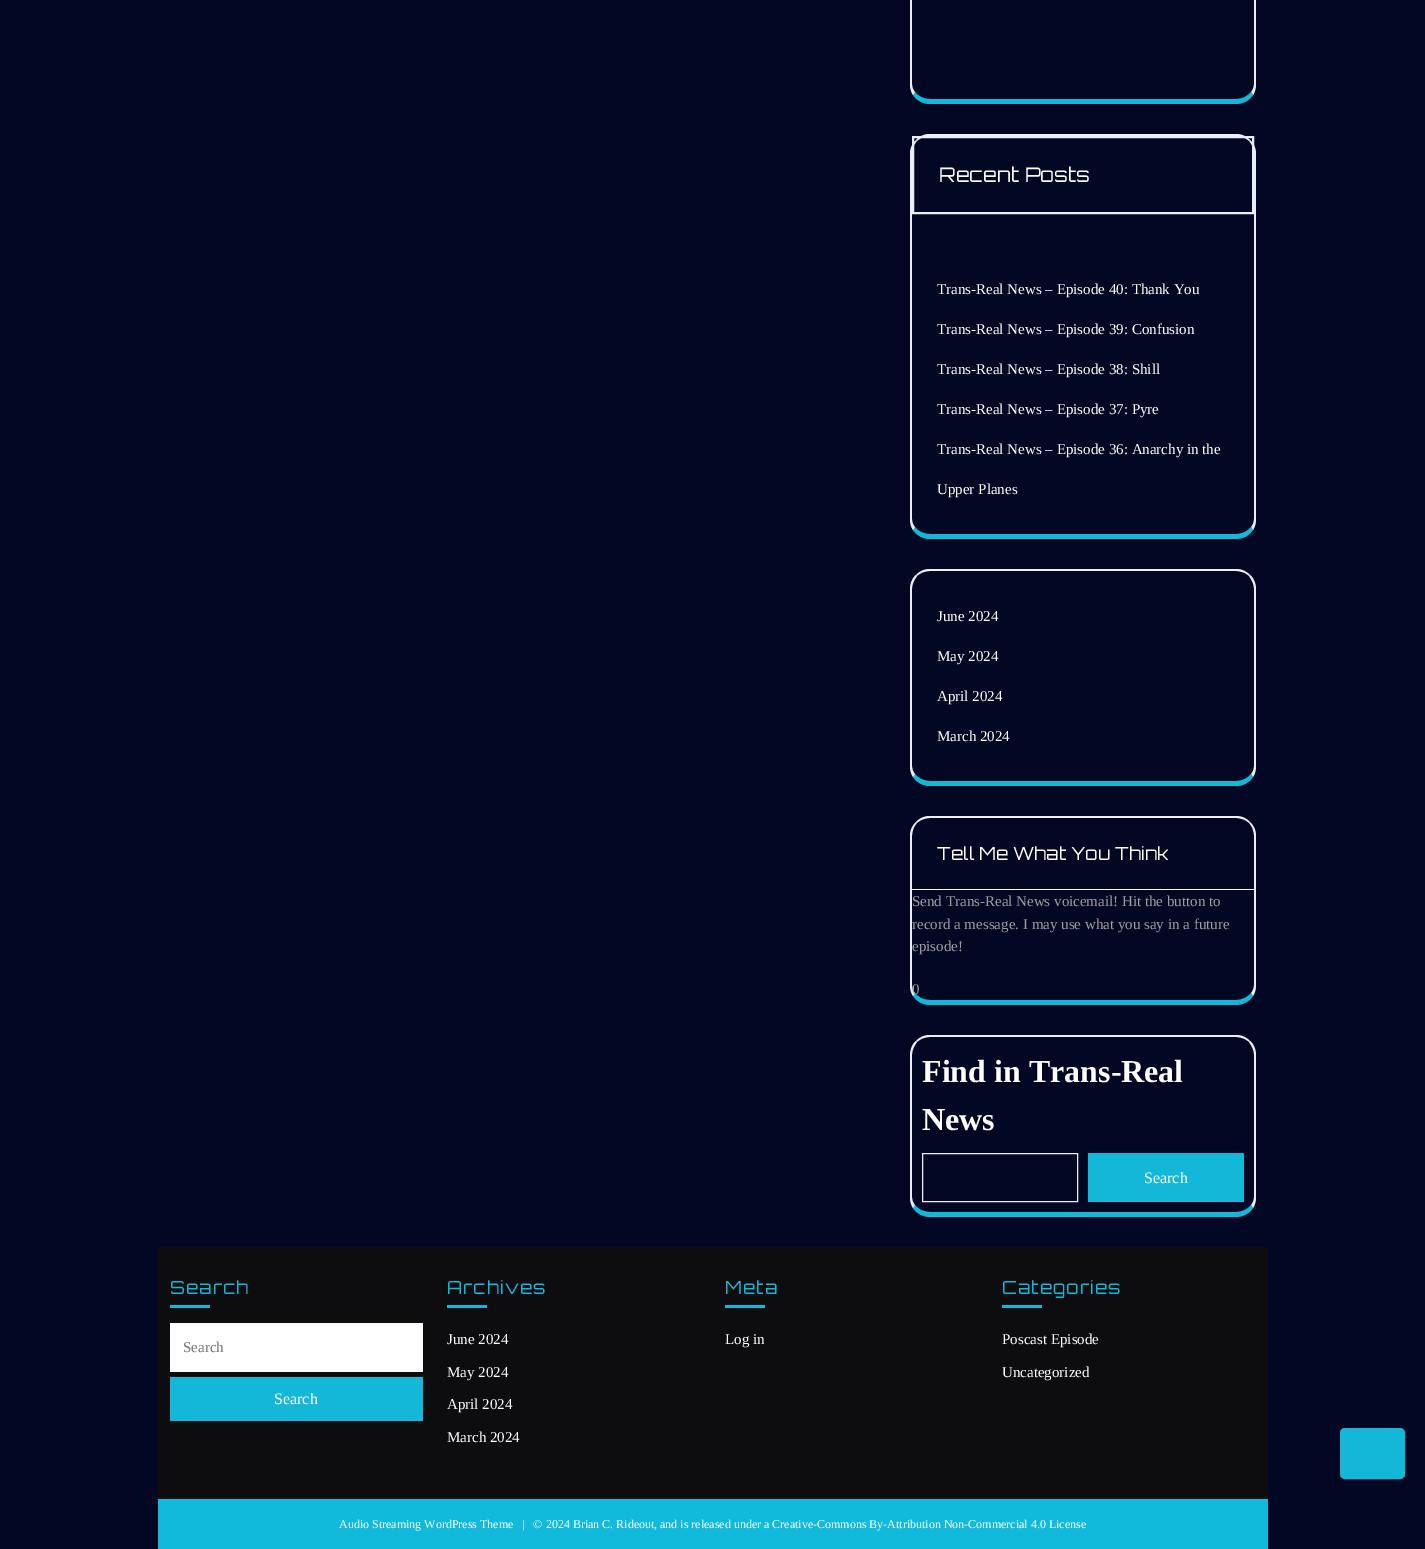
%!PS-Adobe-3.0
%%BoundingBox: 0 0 1425 1549
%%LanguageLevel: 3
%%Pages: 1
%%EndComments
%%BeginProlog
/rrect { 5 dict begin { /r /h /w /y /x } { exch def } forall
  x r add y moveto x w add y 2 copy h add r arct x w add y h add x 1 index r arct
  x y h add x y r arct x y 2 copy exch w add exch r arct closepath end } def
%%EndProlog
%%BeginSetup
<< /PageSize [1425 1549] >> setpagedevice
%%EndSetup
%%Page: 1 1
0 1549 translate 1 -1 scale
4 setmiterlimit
0.008 0.027 0.137 setrgbcolor
0 0 1425 1549 rectfill
0.902 0.941 0.98 setrgbcolor
newpath 1256 84 moveto 1256 -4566 lineto 1256 -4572 1254 -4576 1250 -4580 curveto 1249 -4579 lineto 1252 -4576 1254 -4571 1254 -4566 curveto 1254 84 lineto 1254 87 1253 90 1251 92 curveto 1253 95 lineto 1255 92 1256 88 1256 84 curveto closepath fill
0.075 0.718 0.847 setrgbcolor
newpath 930 104 moveto 1236 104 lineto 1243 104 1249 101 1253 95 curveto 1251 92 lineto 1248 96 1242 99 1236 99 curveto 930 99 lineto 924 99 918 96 915 92 curveto 913 95 lineto 917 101 923 104 930 104 curveto closepath fill
0.902 0.941 0.98 setrgbcolor
newpath 910 -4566 moveto 910 84 lineto 910 88 911 92 913 95 curveto 915 92 lineto 913 90 912 87 912 84 curveto 912 -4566 lineto 912 -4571 914 -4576 917 -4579 curveto 916 -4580 lineto 912 -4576 910 -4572 910 -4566 curveto closepath fill
newpath 930 134 moveto 924 134 920 136 916 140 curveto 917 141 lineto 920 138 925 136 930 136 curveto 1236 136 lineto 1241 136 1246 138 1249 141 curveto 1250 140 lineto 1246 136 1242 134 1236 134 curveto closepath fill
newpath 1256 519 moveto 1256 154 lineto 1256 148 1254 144 1250 140 curveto 1249 141 lineto 1252 144 1254 149 1254 154 curveto 1254 519 lineto 1254 522 1253 525 1251 527 curveto 1253 530 lineto 1255 527 1256 523 1256 519 curveto closepath fill
0.075 0.718 0.847 setrgbcolor
newpath 930 539 moveto 1236 539 lineto 1243 539 1249 536 1253 530 curveto 1251 527 lineto 1248 531 1242 534 1236 534 curveto 930 534 lineto 924 534 918 531 915 527 curveto 913 530 lineto 917 536 923 539 930 539 curveto closepath fill
0.902 0.941 0.98 setrgbcolor
newpath 910 154 moveto 910 519 lineto 910 523 911 527 913 530 curveto 915 527 lineto 913 525 912 522 912 519 curveto 912 154 lineto 912 149 914 144 917 141 curveto 916 140 lineto 912 144 910 148 910 154 curveto closepath fill
2 setlinewidth
913 137 340 76 rectstroke
newpath 930 569 moveto 924 569 920 571 916 575 curveto 917 576 lineto 920 573 925 571 930 571 curveto 1236 571 lineto 1241 571 1246 573 1249 576 curveto 1250 575 lineto 1246 571 1242 569 1236 569 curveto closepath fill
newpath 1256 766 moveto 1256 589 lineto 1256 584 1254 578 1250 575 curveto 1249 576 lineto 1252 580 1254 584 1254 589 curveto 1254 766 lineto 1254 769 1253 772 1251 774 curveto 1253 777 lineto 1255 774 1256 770 1256 766 curveto closepath fill
0.075 0.718 0.847 setrgbcolor
newpath 930 786 moveto 1236 786 lineto 1243 786 1249 783 1253 777 curveto 1251 774 lineto 1248 778 1242 781 1236 781 curveto 930 781 lineto 924 781 918 778 915 774 curveto 913 777 lineto 917 783 923 786 930 786 curveto closepath fill
0.902 0.941 0.98 setrgbcolor
newpath 910 589 moveto 910 766 lineto 910 770 911 774 913 777 curveto 915 774 lineto 913 772 912 769 912 766 curveto 912 589 lineto 912 584 914 580 917 576 curveto 916 575 lineto 912 578 910 584 910 589 curveto closepath fill
newpath 930 816 moveto 924 816 920 818 916 822 curveto 917 823 lineto 920 820 925 818 930 818 curveto 1236 818 lineto 1241 818 1246 820 1249 823 curveto 1250 822 lineto 1246 818 1242 816 1236 816 curveto closepath fill
newpath 1256 985 moveto 1256 836 lineto 1256 830 1254 826 1250 822 curveto 1249 823 lineto 1252 826 1254 831 1254 836 curveto 1254 985 lineto 1254 988 1253 991 1251 993 curveto 1253 996 lineto 1255 993 1256 989 1256 985 curveto closepath fill
0.075 0.718 0.847 setrgbcolor
newpath 930 1005 moveto 1236 1005 lineto 1243 1005 1249 1002 1253 996 curveto 1251 993 lineto 1248 997 1242 1000 1236 1000 curveto 930 1000 lineto 924 1000 918 997 915 993 curveto 913 996 lineto 917 1002 923 1005 930 1005 curveto closepath fill
0.902 0.941 0.98 setrgbcolor
newpath 910 836 moveto 910 985 lineto 910 989 911 993 913 996 curveto 915 993 lineto 913 991 912 988 912 985 curveto 912 836 lineto 912 831 914 826 917 823 curveto 916 822 lineto 912 826 910 830 910 836 curveto closepath fill
1 setgray
912 889 342 1 rectfill
0.902 0.941 0.98 setrgbcolor
newpath 930 1035 moveto 924 1035 920 1037 916 1041 curveto 917 1042 lineto 920 1039 925 1037 930 1037 curveto 1236 1037 lineto 1241 1037 1246 1039 1249 1042 curveto 1250 1041 lineto 1246 1037 1242 1035 1236 1035 curveto closepath fill
newpath 1256 1197 moveto 1256 1055 lineto 1256 1050 1254 1044 1250 1041 curveto 1249 1042 lineto 1252 1046 1254 1050 1254 1055 curveto 1254 1197 lineto 1254 1200 1253 1203 1251 1205 curveto 1253 1208 lineto 1255 1205 1256 1201 1256 1197 curveto closepath fill
0.075 0.718 0.847 setrgbcolor
newpath 930 1217 moveto 1236 1217 lineto 1243 1217 1249 1214 1253 1208 curveto 1251 1205 lineto 1248 1209 1242 1212 1236 1212 curveto 930 1212 lineto 924 1212 918 1209 915 1205 curveto 913 1208 lineto 917 1214 923 1217 930 1217 curveto closepath fill
0.902 0.941 0.98 setrgbcolor
newpath 910 1055 moveto 910 1197 lineto 910 1201 911 1205 913 1208 curveto 915 1205 lineto 913 1203 912 1200 912 1197 curveto 912 1055 lineto 912 1050 914 1046 917 1042 curveto 916 1041 lineto 912 1044 910 1050 910 1055 curveto closepath fill
1 setlinewidth
922.5 1153.5 155 48 rectstroke
0.075 0.718 0.847 setrgbcolor
1088 1153 156 49 rectfill
0.051 0.051 0.059 setrgbcolor
158 1247 1110 252 rectfill
0.075 0.718 0.847 setrgbcolor
170 1305 40 3 rectfill
1 setgray
170 1323 253 49 rectfill
0.075 0.718 0.847 setrgbcolor
170 1377 253 44 rectfill
447 1305 40 3 rectfill
725 1305 40 3 rectfill
1002 1305 40 3 rectfill
0.067 0.725 0.859 setrgbcolor
158 1499 1110 50 rectfill
0.075 0.718 0.847 setrgbcolor
1341 1429 63 49 4 rrect gsave fill grestore
2 setlinewidth
stroke
/Orbitron-Regular [20 0 0 -20 0 0] selectfont
1 setgray
939 182 moveto (Recent Posts) show
/LiberationSerif-Regular [15 0 0 -15 0 0] selectfont
937 294 moveto (Trans-Real News – Episode 40: Thank You) show
937 334 moveto (Trans-Real News – Episode 39: Confusion) show
937 374 moveto (Trans-Real News – Episode 38: Shill) show
937 414 moveto (Trans-Real News – Episode 37: Pyre) show
937 454 moveto (Trans-Real News – Episode 36: Anarchy in the) show
937 494 moveto (Upper Planes) show
937 621 moveto (June 2024) show
937 661 moveto (May 2024) show
937 701 moveto (April 2024) show
937 741 moveto (March 2024) show
/Orbitron-Regular [18 0 0 -18 0 0] selectfont
937 860 moveto (Tell Me What You Think) show
/LiberationSerif-Regular [15 0 0 -15 0 0] selectfont
0.62 setgray
912 906 moveto (Send Trans-Real News voicemail! Hit the button to) show
912 929 moveto (record a message. I may use what you say in a future) show
912 951 moveto (episode!) show
912 994 moveto (0) show
/LiberationSerif-Bold [32 0 0 -32 0 0] selectfont
1 setgray
922 1082 moveto (Find in Trans-Real) show
922 1130 moveto (News) show
/LiberationSerif-Regular [16 0 0 -16 0 0] selectfont
1144 1183 moveto (Search) show
/Orbitron-Regular [18 0 0 -18 0 0] selectfont
0.075 0.718 0.847 setrgbcolor
170 1294 moveto 1 0 (Search) ashow
/LiberationSerif-Regular [15 0 0 -15 0 0] selectfont
0.459 setgray
183 1352 moveto (Search) show
/LiberationSerif-Regular [16 0 0 -16 0 0] selectfont
1 setgray
274 1404 moveto (Search) show
/Orbitron-Regular [18 0 0 -18 0 0] selectfont
0.075 0.718 0.847 setrgbcolor
447 1294 moveto 1 0 (Archives) ashow
/LiberationSerif-Regular [15 0 0 -15 0 0] selectfont
1 setgray
447 1344 moveto (June 2024) show
447 1377 moveto (May 2024) show
447 1409 moveto (April 2024) show
447 1442 moveto (March 2024) show
/Orbitron-Regular [18 0 0 -18 0 0] selectfont
0.075 0.718 0.847 setrgbcolor
725 1294 moveto 1 0 (Meta) ashow
/LiberationSerif-Regular [15 0 0 -15 0 0] selectfont
1 setgray
725 1344 moveto (Log in) show
/Orbitron-Regular [18 0 0 -18 0 0] selectfont
0.075 0.718 0.847 setrgbcolor
1002 1294 moveto 1 0 (Categories) ashow
/LiberationSerif-Regular [15 0 0 -15 0 0] selectfont
1 setgray
1002 1344 moveto (Poscast Episode) show
1002 1377 moveto (Uncategorized) show
/LiberationSerif-Regular [12 0 0 -12 0 0] selectfont
339 1528 moveto (Audio Streaming WordPress Theme) show
522 1528 moveto (|   © 2024 Brian C. Rideout, and is released under a Creative-Commons By-Attribution Non-Commercial 4.0 License) show
showpage
%%EOF
